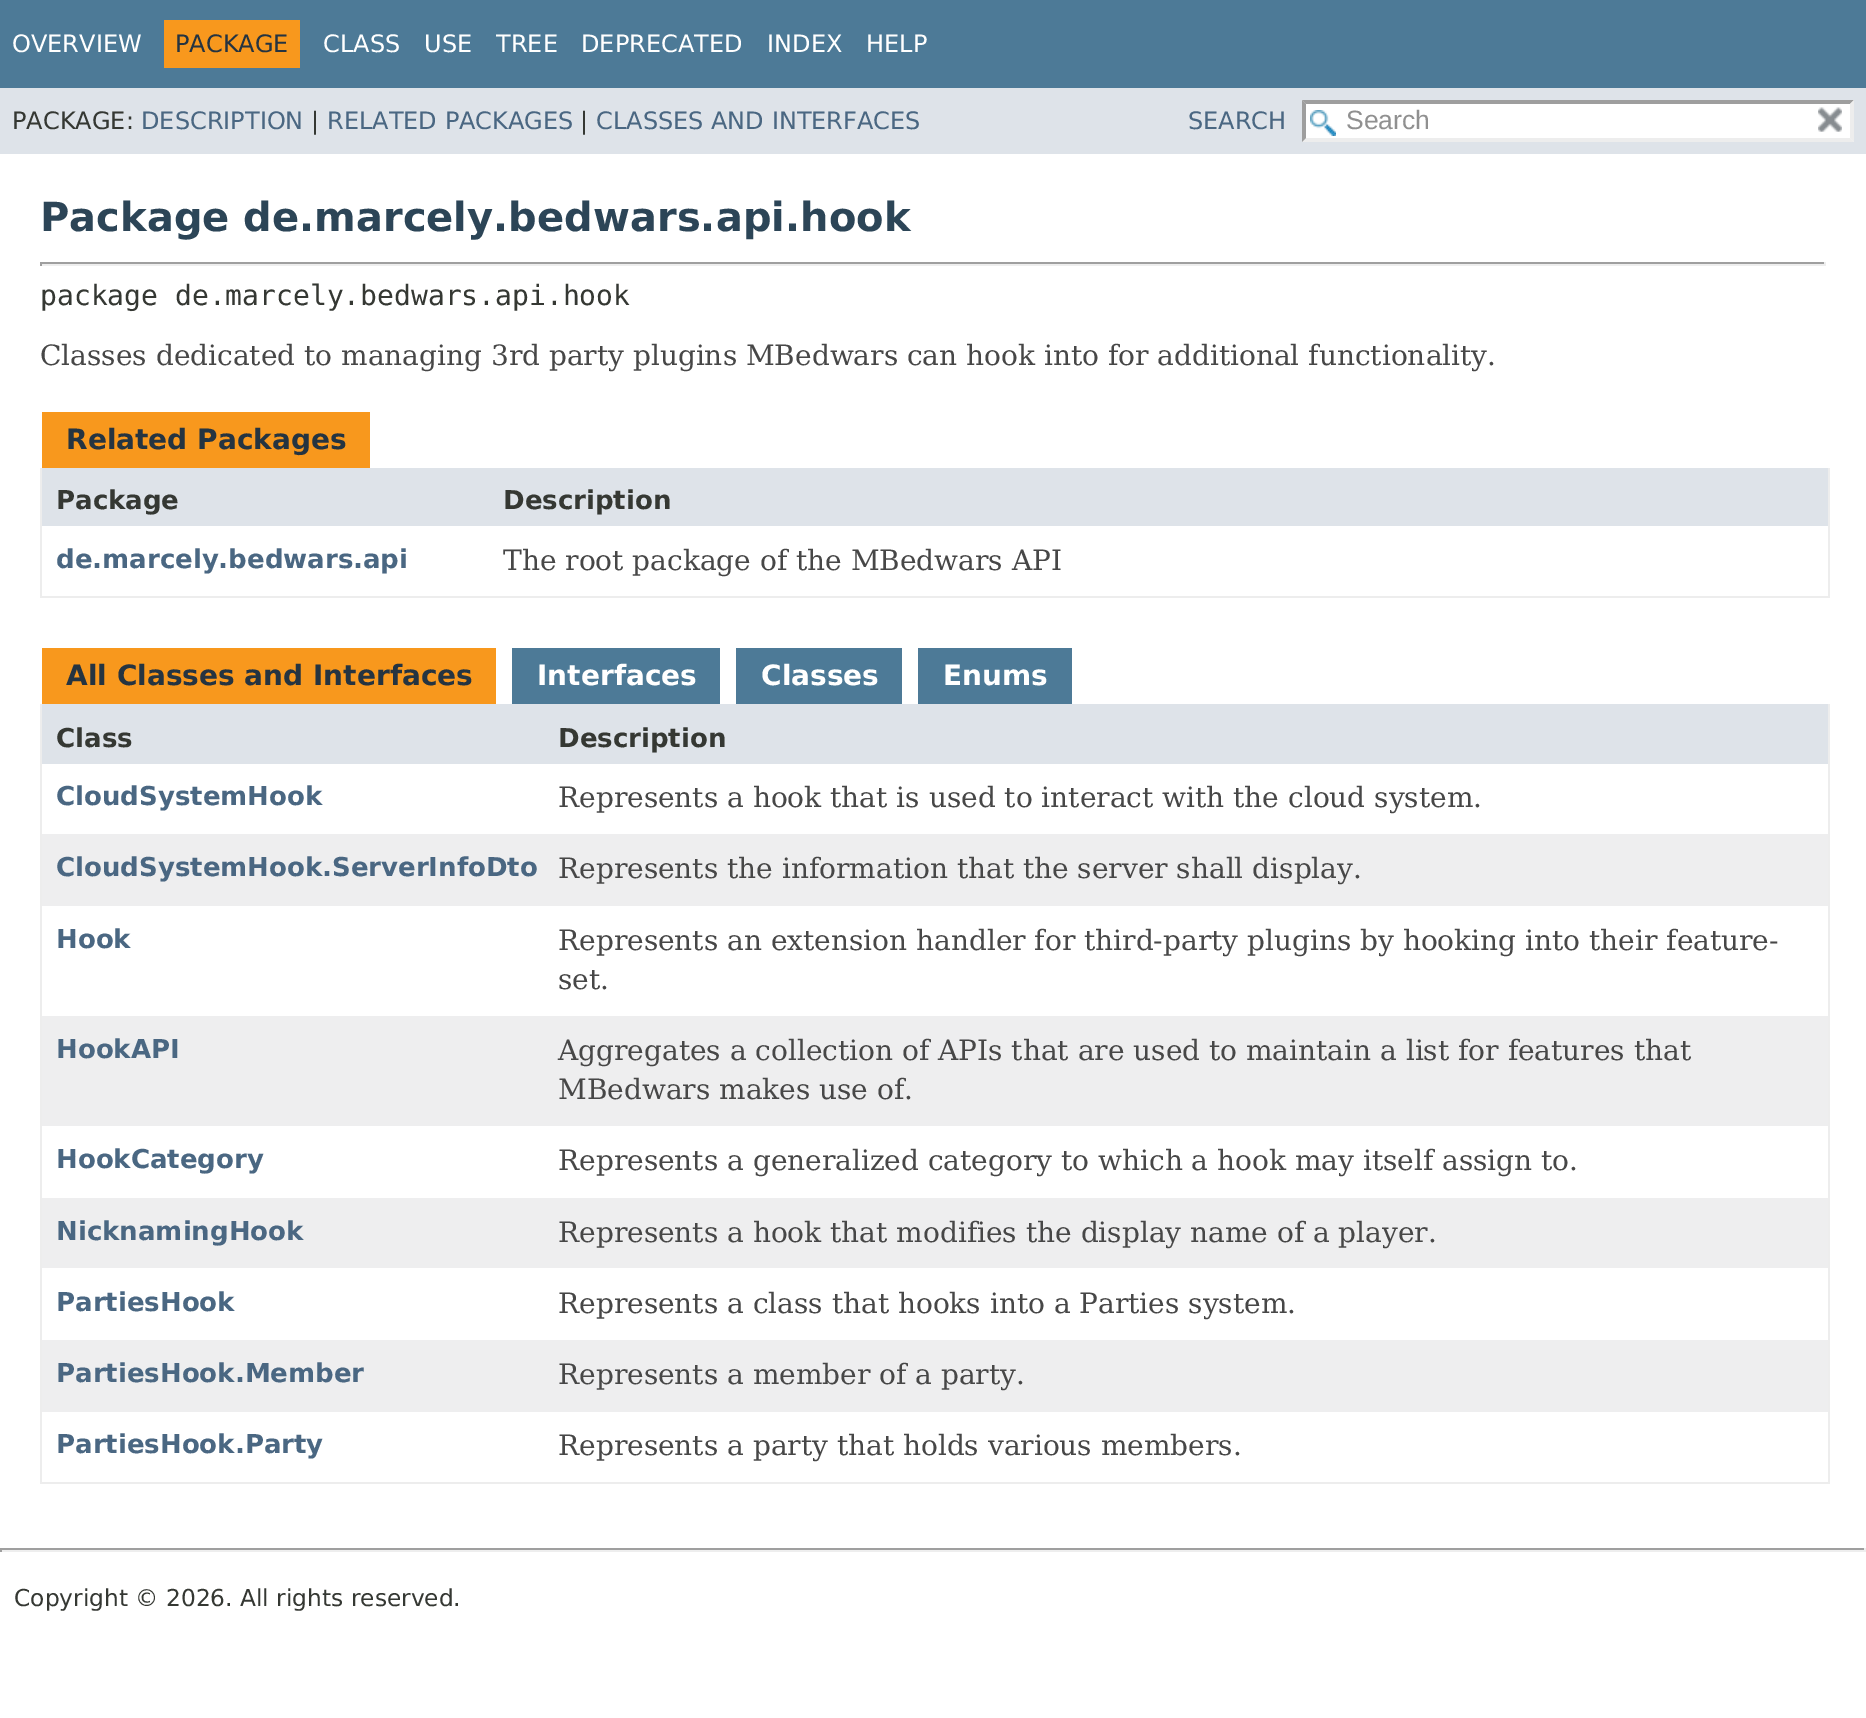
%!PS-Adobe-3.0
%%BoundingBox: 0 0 1866 1718
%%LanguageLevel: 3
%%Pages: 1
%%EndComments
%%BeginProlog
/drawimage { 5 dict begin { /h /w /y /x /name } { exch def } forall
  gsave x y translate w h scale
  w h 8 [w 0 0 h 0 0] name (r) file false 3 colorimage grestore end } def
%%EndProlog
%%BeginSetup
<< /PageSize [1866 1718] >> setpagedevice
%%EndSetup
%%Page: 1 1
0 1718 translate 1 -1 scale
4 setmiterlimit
1 setgray
0 0 1866 1718 rectfill
0.302 0.478 0.592 setrgbcolor
0 0 1866 88 rectfill
0.973 0.596 0.114 setrgbcolor
164 20 136 48 rectfill
0.871 0.89 0.914 setrgbcolor
0 88 1866 66 rectfill
1 setgray
1302 100 552 42 rectfill
(images/1.raw) 1310 110 26 26 drawimage
0.62 setgray
newpath 1302 100 moveto 1854 100 lineto 1850 104 lineto 1306 104 lineto closepath fill
0.929 setgray
newpath 1854 100 moveto 1854 142 lineto 1850 138 lineto 1850 104 lineto closepath fill
newpath 1854 142 moveto 1302 142 lineto 1306 138 lineto 1850 138 lineto closepath fill
0.62 setgray
newpath 1302 142 moveto 1302 100 lineto 1306 104 lineto 1306 138 lineto closepath fill
(images/2.raw) 1818 107 24 25 drawimage
0.624 setgray
40 262 1786 2 rectfill
0.933 setgray
1824 262 2 4 rectfill
40 264 1786 2 rectfill
0.624 setgray
40 262 2 4 rectfill
0.973 0.596 0.114 setrgbcolor
42 412 328 56 rectfill
0.929 setgray
1828 468 2 130 rectfill
40 596 1790 2 rectfill
40 468 2 130 rectfill
0.871 0.89 0.914 setrgbcolor
42 468 1786 58 rectfill
0.973 0.596 0.114 setrgbcolor
42 648 454 56 rectfill
0.302 0.478 0.592 setrgbcolor
512 648 208 56 rectfill
736 648 166 56 rectfill
918 648 154 56 rectfill
0.929 setgray
1828 704 2 780 rectfill
40 1482 1790 2 rectfill
40 704 2 780 rectfill
0.871 0.89 0.914 setrgbcolor
42 704 1786 60 rectfill
0.933 0.933 0.937 setrgbcolor
42 834 1786 72 rectfill
42 1016 1786 110 rectfill
42 1198 1786 70 rectfill
42 1340 1786 72 rectfill
0.624 setgray
0 1548 1866 2 rectfill
0.933 setgray
1864 1548 2 4 rectfill
0 1550 1866 2 rectfill
0.624 setgray
0 1548 2 4 rectfill
/DejaVuSans-Regular [24 0 0 -24 0 0] selectfont
1 setgray
12 52 moveto (OVERVIEW) show
0.145 0.204 0.255 setrgbcolor
175 52 moveto (PACKAGE) show
1 setgray
323 52 moveto (CLASS) show
424 52 moveto (USE) show
496 52 moveto (TREE) show
581 52 moveto (DEPRECATED) show
767 52 moveto (INDEX) show
866 52 moveto (HELP) show
0.208 0.22 0.2 setrgbcolor
12 129 moveto (PACKAGE:) show
0.29 0.404 0.51 setrgbcolor
141 129 moveto (DESCRIPTION) show
0.208 0.22 0.2 setrgbcolor
311 129 moveto (|) show
0.29 0.404 0.51 setrgbcolor
327 129 moveto (RELATED PACKAGES) show
0.208 0.22 0.2 setrgbcolor
580 129 moveto (|) show
0.29 0.404 0.51 setrgbcolor
596 129 moveto (CLASSES AND INTERFACES) show
1188 129 moveto (SEARCH) show
/LiberationSans-Regular [26.5 0 0 -26.5 0 0] selectfont
0.565 setgray
1346 129 moveto (Search) show
/DejaVuSans-Bold [40 0 0 -40 0 0] selectfont
0.173 0.271 0.341 setrgbcolor
40 231 moveto (Package de.marcely.bedwars.api.hook) show
/DejaVuSansMono-Regular [28 0 0 -28 0 0] selectfont
0.208 0.22 0.2 setrgbcolor
40 305 moveto (package de.marcely.bedwars.api.hook) show
/DejaVuSerif-Regular [28 0 0 -28 0 0] selectfont
0.278 setgray
40 365 moveto (Classes dedicated to managing 3rd party plugins MBedwars can hook into for additional functionality.) show
/DejaVuSans-Bold [28 0 0 -28 0 0] selectfont
0.145 0.204 0.255 setrgbcolor
66 449 moveto (Related Packages) show
/DejaVuSans-Bold [26 0 0 -26 0 0] selectfont
0.208 0.22 0.2 setrgbcolor
56 509 moveto (Package) show
503 509 moveto (Description) show
0.29 0.404 0.51 setrgbcolor
56 568 moveto (de.marcely.bedwars.api) show
/DejaVuSerif-Regular [28 0 0 -28 0 0] selectfont
0.278 setgray
503 570 moveto (The root package of the MBedwars API) show
/DejaVuSans-Bold [28 0 0 -28 0 0] selectfont
0.145 0.204 0.255 setrgbcolor
66 685 moveto (All Classes and Interfaces) show
1 setgray
537 685 moveto (Interfaces) show
761 685 moveto (Classes) show
943 685 moveto (Enums) show
/DejaVuSans-Bold [26 0 0 -26 0 0] selectfont
0.208 0.22 0.2 setrgbcolor
56 747 moveto (Class) show
558 747 moveto (Description) show
0.29 0.404 0.51 setrgbcolor
56 805 moveto (CloudSystemHook) show
/DejaVuSerif-Regular [28 0 0 -28 0 0] selectfont
0.278 setgray
558 807 moveto (Represents a hook that is used to interact with the cloud system.) show
/DejaVuSans-Bold [26 0 0 -26 0 0] selectfont
0.29 0.404 0.51 setrgbcolor
56 876 moveto (CloudSystemHook.ServerInfoDto) show
/DejaVuSerif-Regular [28 0 0 -28 0 0] selectfont
0.278 setgray
558 878 moveto (Represents the information that the server shall display.) show
/DejaVuSans-Bold [26 0 0 -26 0 0] selectfont
0.29 0.404 0.51 setrgbcolor
56 948 moveto (Hook) show
/DejaVuSerif-Regular [28 0 0 -28 0 0] selectfont
0.278 setgray
558 950 moveto (Represents an extension handler for third-party plugins by hooking into their feature-) show
558 989 moveto (set.) show
/DejaVuSans-Bold [26 0 0 -26 0 0] selectfont
0.29 0.404 0.51 setrgbcolor
56 1058 moveto (HookAPI) show
/DejaVuSerif-Regular [28 0 0 -28 0 0] selectfont
0.278 setgray
558 1060 moveto (Aggregates a collection of APIs that are used to maintain a list for features that) show
558 1099 moveto (MBedwars makes use of.) show
/DejaVuSans-Bold [26 0 0 -26 0 0] selectfont
0.29 0.404 0.51 setrgbcolor
56 1168 moveto (HookCategory) show
/DejaVuSerif-Regular [28 0 0 -28 0 0] selectfont
0.278 setgray
558 1170 moveto (Represents a generalized category to which a hook may itself assign to.) show
/DejaVuSans-Bold [26 0 0 -26 0 0] selectfont
0.29 0.404 0.51 setrgbcolor
56 1240 moveto (NicknamingHook) show
/DejaVuSerif-Regular [28 0 0 -28 0 0] selectfont
0.278 setgray
558 1242 moveto (Represents a hook that modifies the display name of a player.) show
/DejaVuSans-Bold [26 0 0 -26 0 0] selectfont
0.29 0.404 0.51 setrgbcolor
56 1311 moveto (PartiesHook) show
/DejaVuSerif-Regular [28 0 0 -28 0 0] selectfont
0.278 setgray
558 1313 moveto (Represents a class that hooks into a Parties system.) show
/DejaVuSans-Bold [26 0 0 -26 0 0] selectfont
0.29 0.404 0.51 setrgbcolor
56 1382 moveto (PartiesHook.Member) show
/DejaVuSerif-Regular [28 0 0 -28 0 0] selectfont
0.278 setgray
558 1384 moveto (Represents a member of a party.) show
/DejaVuSans-Bold [26 0 0 -26 0 0] selectfont
0.29 0.404 0.51 setrgbcolor
56 1453 moveto (PartiesHook.Party) show
/DejaVuSerif-Regular [28 0 0 -28 0 0] selectfont
0.278 setgray
558 1455 moveto (Represents a party that holds various members.) show
/DejaVuSans-Regular [23.3 0 0 -23.3 0 0] selectfont
0.208 0.22 0.2 setrgbcolor
14 1606 moveto (Copyright © 2026. All rights reserved.) show
showpage
%%EOF
